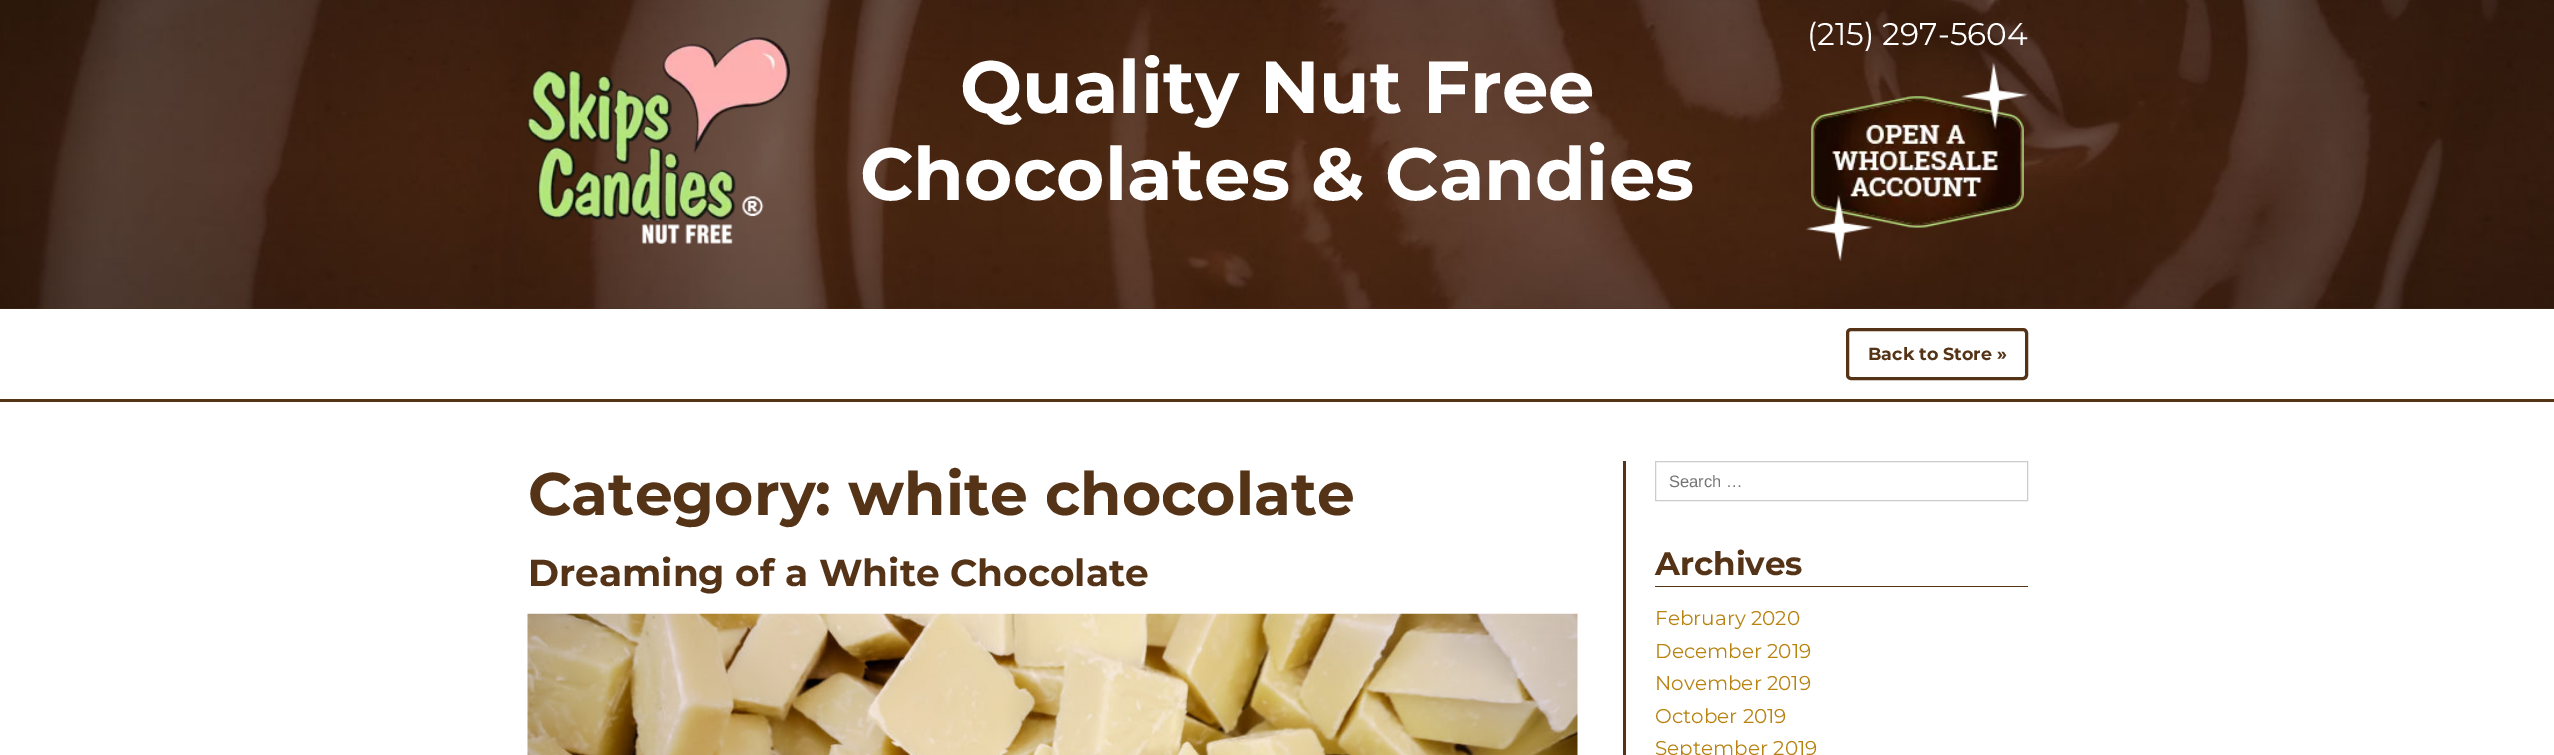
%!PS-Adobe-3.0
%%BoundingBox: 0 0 2554 755
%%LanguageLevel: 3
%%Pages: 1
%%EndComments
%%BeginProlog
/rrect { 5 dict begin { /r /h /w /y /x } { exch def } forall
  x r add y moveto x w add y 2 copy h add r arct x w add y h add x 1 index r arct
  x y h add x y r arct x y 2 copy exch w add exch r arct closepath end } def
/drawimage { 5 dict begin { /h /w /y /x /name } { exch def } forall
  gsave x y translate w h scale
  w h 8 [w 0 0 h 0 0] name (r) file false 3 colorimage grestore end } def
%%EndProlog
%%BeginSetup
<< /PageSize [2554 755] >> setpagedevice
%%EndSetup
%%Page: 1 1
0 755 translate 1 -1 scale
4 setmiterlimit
1 setgray
0 0 2554 755 rectfill
(images/1.raw) 0 0 2554 309 drawimage
(images/2.raw) 527 37 263 207 drawimage
(images/3.raw) 1806 62 222 200 drawimage
0.333 0.2 0.09 setrgbcolor
0 399 2554 3 rectfill
3 setlinewidth
1847.5 329.5 179 49 3.5 rrect stroke
(images/4.raw) 527 613 1051 142 drawimage
1623 461 3 294 rectfill
0.8 setgray
1 setlinewidth
1655.5 461.5 372 39 rectstroke
0.333 0.2 0.09 setrgbcolor
1655 586 373 1 rectfill
/Montserrat-Bold [73.75 0 0 -73.75 0 0] selectfont
1 setgray
960 113 moveto (Quality Nut Free) show
860 200 moveto (Chocolates & Candies) show
/Montserrat-Regular [31.25 0 0 -31.25 0 0] selectfont
1807 45 moveto (\(215\) 297-5604) show
/Montserrat-Bold [17.5 0 0 -17.5 0 0] selectfont
0.333 0.2 0.09 setrgbcolor
1868 360 moveto (Back to Store ») show
/Montserrat-Bold [60 0 0 -60 0 0] selectfont
528 515 moveto (Category: white chocolate) show
/Montserrat-Bold [37.5 0 0 -37.5 0 0] selectfont
528 586 moveto (Dreaming of a White Chocolate) show
/LiberationSans-Regular [16.5 0 0 -16.5 0 0] selectfont
0.459 setgray
1669 487 moveto (Search …) show
/Montserrat-Bold [32.5 0 0 -32.5 0 0] selectfont
0.333 0.2 0.09 setrgbcolor
1655 575 moveto (Archives) show
/Montserrat-Regular [20 0 0 -20 0 0] selectfont
0.722 0.514 0.067 setrgbcolor
1655 625 moveto (February 2020) show
1655 658 moveto (December 2019) show
1655 690 moveto (November 2019) show
1655 723 moveto (October 2019) show
1655 755 moveto (September 2019) show
showpage
%%EOF
